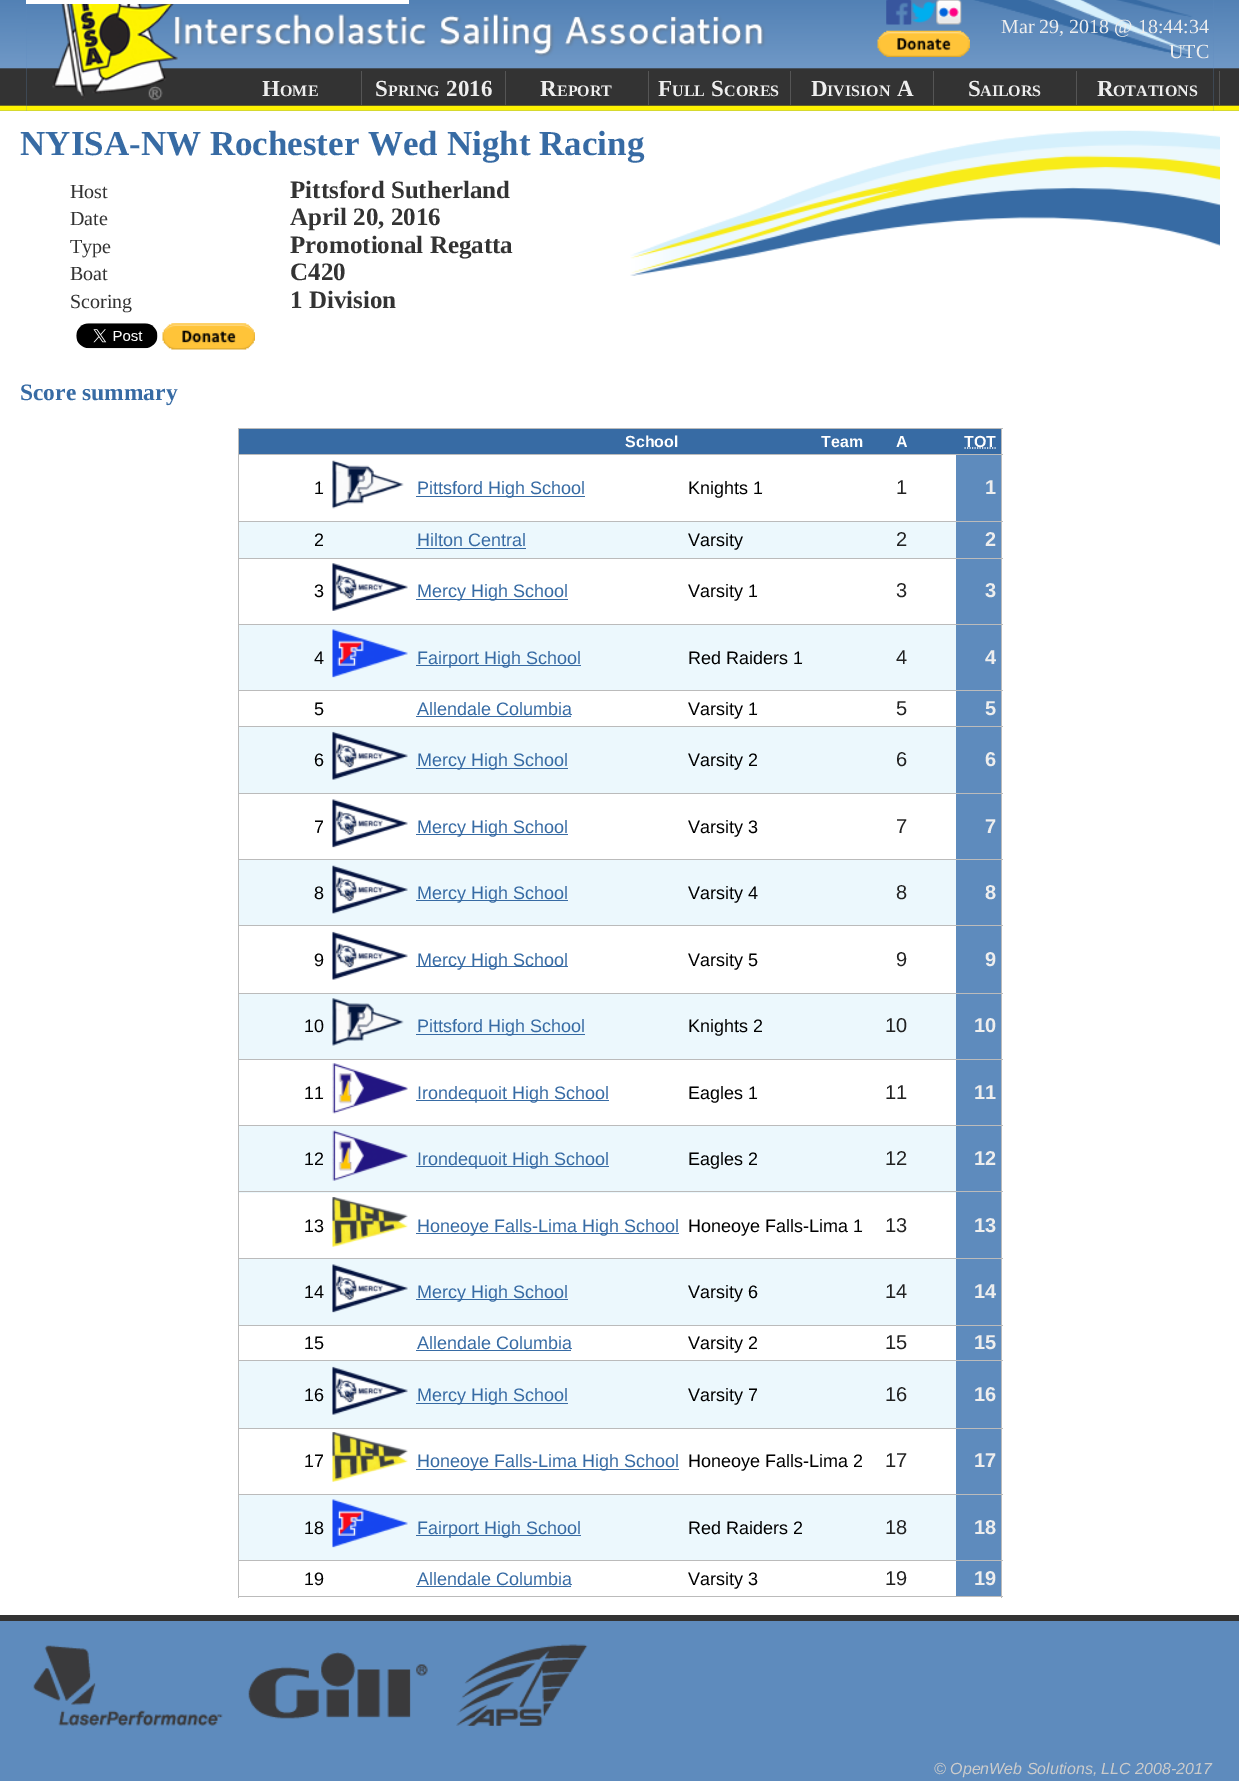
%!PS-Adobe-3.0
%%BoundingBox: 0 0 1239 1781
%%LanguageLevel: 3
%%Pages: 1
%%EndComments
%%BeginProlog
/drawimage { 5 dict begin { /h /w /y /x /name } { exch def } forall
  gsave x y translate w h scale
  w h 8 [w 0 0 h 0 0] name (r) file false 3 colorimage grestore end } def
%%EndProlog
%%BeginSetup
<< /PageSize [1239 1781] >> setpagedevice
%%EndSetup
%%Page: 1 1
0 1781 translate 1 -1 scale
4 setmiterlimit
0.369 0.545 0.741 setrgbcolor
0 0 1239 1781 rectfill
(images/1.raw) 0 0 1239 111 drawimage
26 0 1188 111 rectfill
(images/2.raw) 26 0 1188 111 drawimage
1 setgray
26 0 383 4 rectfill
(images/3.raw) 886 0 26 25 drawimage
(images/4.raw) 911 1 26 22 drawimage
(images/5.raw) 936 0 26 25 drawimage
(images/6.raw) 877 30 93 27 drawimage
0.333 setgray
361 71 1 34 rectfill
505 71 1 34 rectfill
648 71 1 34 rectfill
790 71 1 34 rectfill
933 71 1 34 rectfill
1076 71 1 34 rectfill
1219 71 1 34 rectfill
1 setgray
0 111 1239 1504 rectfill
(images/7.raw) 630 130 590 146 drawimage
(images/8.raw) 76 323 82 26 drawimage
(images/9.raw) 162 323 93 27 drawimage
0.216 0.42 0.643 setrgbcolor
239 429 762 25 rectfill
0.733 setgray
238 428 765 1 rectfill
238 454 765 1 rectfill
1001 454 1 1144 rectfill
1001 428 1 27 rectfill
238 1596 765 1 rectfill
238 454 1 1144 rectfill
238 428 1 27 rectfill
1 setgray
1.2 setlinewidth
[1.25 1.25] 0 setdash
newpath 964.5 448 moveto 996.5 448 lineto stroke
0.733 setgray
238 521 765 1 rectfill
(images/10.raw) 332 460 72 49 drawimage
0.216 0.42 0.643 setrgbcolor
416 496 169 1 rectfill
0.369 0.545 0.741 setrgbcolor
956 455 45 66 rectfill
0.925 0.973 0.992 setrgbcolor
239 522 717 36 rectfill
0.733 setgray
238 558 765 1 rectfill
0.216 0.42 0.643 setrgbcolor
416 548 110 1 rectfill
0.369 0.545 0.741 setrgbcolor
956 522 45 36 rectfill
0.733 setgray
238 624 765 1 rectfill
(images/11.raw) 332 563 76 48 drawimage
0.216 0.42 0.643 setrgbcolor
416 599 152 1 rectfill
0.369 0.545 0.741 setrgbcolor
956 559 45 65 rectfill
0.925 0.973 0.992 setrgbcolor
239 625 717 65 rectfill
0.733 setgray
238 690 765 1 rectfill
(images/12.raw) 332 629 76 49 drawimage
0.216 0.42 0.643 setrgbcolor
416 665 165 1 rectfill
0.369 0.545 0.741 setrgbcolor
956 625 45 65 rectfill
0.733 setgray
238 726 765 1 rectfill
0.216 0.42 0.643 setrgbcolor
416 716 155 1 rectfill
0.369 0.545 0.741 setrgbcolor
956 691 45 35 rectfill
0.925 0.973 0.992 setrgbcolor
239 727 717 66 rectfill
0.733 setgray
238 793 765 1 rectfill
(images/13.raw) 332 731 76 49 drawimage
0.216 0.42 0.643 setrgbcolor
416 768 152 1 rectfill
0.369 0.545 0.741 setrgbcolor
956 727 45 66 rectfill
0.733 setgray
238 859 765 1 rectfill
(images/14.raw) 332 799 76 49 drawimage
0.216 0.42 0.643 setrgbcolor
416 834 152 1 rectfill
0.369 0.545 0.741 setrgbcolor
956 794 45 65 rectfill
0.925 0.973 0.992 setrgbcolor
239 860 717 65 rectfill
0.733 setgray
238 925 765 1 rectfill
(images/15.raw) 332 865 76 49 drawimage
0.216 0.42 0.643 setrgbcolor
416 900 152 1 rectfill
0.369 0.545 0.741 setrgbcolor
956 860 45 65 rectfill
0.733 setgray
238 993 765 1 rectfill
(images/16.raw) 332 931 76 49 drawimage
0.216 0.42 0.643 setrgbcolor
416 966 152 1 rectfill
0.369 0.545 0.741 setrgbcolor
956 926 45 67 rectfill
0.925 0.973 0.992 setrgbcolor
239 994 717 65 rectfill
0.733 setgray
238 1059 765 1 rectfill
(images/17.raw) 332 998 72 48 drawimage
0.216 0.42 0.643 setrgbcolor
416 1034 169 1 rectfill
0.369 0.545 0.741 setrgbcolor
956 994 45 65 rectfill
0.733 setgray
238 1125 765 1 rectfill
(images/18.raw) 332 1063 76 51 drawimage
0.216 0.42 0.643 setrgbcolor
416 1100 193 1 rectfill
0.369 0.545 0.741 setrgbcolor
956 1060 45 65 rectfill
0.925 0.973 0.992 setrgbcolor
239 1126 717 67 rectfill
0.369 0.545 0.741 setrgbcolor
956 1126 45 132 rectfill
0.733 setgray
238 1191 765 1 rectfill
(images/19.raw) 332 1130 76 51 drawimage
0.216 0.42 0.643 setrgbcolor
416 1166 193 1 rectfill
0.733 setgray
238 1258 765 1 rectfill
(images/20.raw) 332 1197 76 50 drawimage
0.216 0.42 0.643 setrgbcolor
416 1233 263 1 rectfill
0.925 0.973 0.992 setrgbcolor
239 1259 717 66 rectfill
0.733 setgray
238 1325 765 1 rectfill
(images/21.raw) 332 1264 76 49 drawimage
0.216 0.42 0.643 setrgbcolor
416 1299 152 1 rectfill
0.369 0.545 0.741 setrgbcolor
956 1259 45 66 rectfill
0.733 setgray
238 1360 765 1 rectfill
0.216 0.42 0.643 setrgbcolor
416 1350 155 1 rectfill
0.369 0.545 0.741 setrgbcolor
956 1326 45 34 rectfill
0.925 0.973 0.992 setrgbcolor
239 1361 717 67 rectfill
0.733 setgray
238 1428 765 1 rectfill
(images/13.raw) 332 1366 76 49 drawimage
0.216 0.42 0.643 setrgbcolor
416 1403 152 1 rectfill
0.369 0.545 0.741 setrgbcolor
956 1361 45 67 rectfill
0.733 setgray
238 1494 765 1 rectfill
(images/20.raw) 332 1432 76 50 drawimage
0.216 0.42 0.643 setrgbcolor
416 1469 263 1 rectfill
0.369 0.545 0.741 setrgbcolor
956 1429 45 65 rectfill
0.925 0.973 0.992 setrgbcolor
239 1495 717 65 rectfill
0.733 setgray
238 1560 765 1 rectfill
(images/22.raw) 332 1499 76 49 drawimage
0.216 0.42 0.643 setrgbcolor
416 1535 165 1 rectfill
0.369 0.545 0.741 setrgbcolor
956 1495 45 65 rectfill
0.216 0.42 0.643 setrgbcolor
416 1586 155 1 rectfill
0.369 0.545 0.741 setrgbcolor
956 1561 45 35 rectfill
0.2 setgray
0 1615 1239 6 rectfill
(images/23.raw) 33 1645 190 81 drawimage
(images/24.raw) 248 1652 180 67 drawimage
(images/25.raw) 456 1644 132 82 drawimage
/LiberationSerif-Regular [20 0 0 -20 0 0] selectfont
0.933 setgray
1001 33 moveto (Mar 29, 2018 @ 18:44:34) show
1169 58 moveto (UTC) show
/LiberationSerif-Bold [23 0 0 -23 0 0] selectfont
262 96 moveto (H) show
/LiberationSerif-Bold [16 0 0 -16 0 0] selectfont
280 96 moveto (OME) show
/LiberationSerif-Bold [23 0 0 -23 0 0] selectfont
375 96 moveto (S) show
/LiberationSerif-Bold [16 0 0 -16 0 0] selectfont
388 96 moveto (PRING) show
/LiberationSerif-Bold [23 0 0 -23 0 0] selectfont
446 96 moveto (2016) show
540 96 moveto (R) show
/LiberationSerif-Bold [16 0 0 -16 0 0] selectfont
557 96 moveto (EPORT) show
/LiberationSerif-Bold [23 0 0 -23 0 0] selectfont
658 96 moveto (F) show
/LiberationSerif-Bold [16 0 0 -16 0 0] selectfont
672 96 moveto (ULL) show
/LiberationSerif-Bold [23 0 0 -23 0 0] selectfont
711 96 moveto (S) show
/LiberationSerif-Bold [16 0 0 -16 0 0] selectfont
724 96 moveto (CORES) show
/LiberationSerif-Bold [23 0 0 -23 0 0] selectfont
811 96 moveto (D) show
/LiberationSerif-Bold [16 0 0 -16 0 0] selectfont
827 96 moveto (IVISION) show
/LiberationSerif-Bold [23 0 0 -23 0 0] selectfont
897 96 moveto (A) show
968 96 moveto (S) show
/LiberationSerif-Bold [16 0 0 -16 0 0] selectfont
980 96 moveto (AILORS) show
/LiberationSerif-Bold [23 0 0 -23 0 0] selectfont
1097 96 moveto (R) show
/LiberationSerif-Bold [16 0 0 -16 0 0] selectfont
1113 96 moveto (OTATIONS) show
/LiberationSerif-Bold [35 0 0 -35 0 0] selectfont
0.216 0.42 0.643 setrgbcolor
20 155 moveto (NYISA-NW Rochester Wed Night Racing) show
/LiberationSerif-Regular [20 0 0 -20 0 0] selectfont
0.2 setgray
70 198 moveto (Host) show
/LiberationSerif-Bold [25 0 0 -25 0 0] selectfont
290 198 moveto (Pittsford Sutherland) show
/LiberationSerif-Regular [20 0 0 -20 0 0] selectfont
70 225 moveto (Date) show
/LiberationSerif-Bold [25 0 0 -25 0 0] selectfont
290 225 moveto (April 20, 2016) show
/LiberationSerif-Regular [20 0 0 -20 0 0] selectfont
70 253 moveto (Type) show
/LiberationSerif-Bold [25 0 0 -25 0 0] selectfont
290 253 moveto (Promotional Regatta) show
/LiberationSerif-Regular [20 0 0 -20 0 0] selectfont
70 280 moveto (Boat) show
/LiberationSerif-Bold [25 0 0 -25 0 0] selectfont
290 280 moveto (C420) show
/LiberationSerif-Regular [20 0 0 -20 0 0] selectfont
70 308 moveto (Scoring) show
/LiberationSerif-Bold [25 0 0 -25 0 0] selectfont
290 308 moveto (1 Division) show
/LiberationSerif-Bold [23.5 0 0 -23.5 0 0] selectfont
0.216 0.42 0.643 setrgbcolor
20 400 moveto (Score summary) show
/LiberationSans-Bold [16 0 0 -16 0 0] selectfont
1 setgray
625 447 moveto (School) show
821 447 moveto (Team) show
896 447 moveto (A) show
964 447 moveto (TOT) show
/LiberationSans-Regular [18 0 0 -18 0 0] selectfont
0 setgray
314 494 moveto (1) show
0.216 0.42 0.643 setrgbcolor
417 494 moveto (Pittsford High School) show
0 setgray
688 494 moveto (Knights 1) show
/LiberationSans-Regular [20 0 0 -20 0 0] selectfont
0.133 setgray
896 494 moveto (1) show
/LiberationSans-Bold [20 0 0 -20 0 0] selectfont
0.933 setgray
985 494 moveto (1) show
/LiberationSans-Regular [18 0 0 -18 0 0] selectfont
0 setgray
314 546 moveto (2) show
0.216 0.42 0.643 setrgbcolor
417 546 moveto (Hilton Central) show
0 setgray
688 546 moveto (Varsity) show
/LiberationSans-Regular [20 0 0 -20 0 0] selectfont
0.133 setgray
896 546 moveto (2) show
/LiberationSans-Bold [20 0 0 -20 0 0] selectfont
0.933 setgray
985 546 moveto (2) show
/LiberationSans-Regular [18 0 0 -18 0 0] selectfont
0 setgray
314 597 moveto (3) show
0.216 0.42 0.643 setrgbcolor
417 597 moveto (Mercy High School) show
0 setgray
688 597 moveto (Varsity 1) show
/LiberationSans-Regular [20 0 0 -20 0 0] selectfont
0.133 setgray
896 597 moveto (3) show
/LiberationSans-Bold [20 0 0 -20 0 0] selectfont
0.933 setgray
985 597 moveto (3) show
/LiberationSans-Regular [18 0 0 -18 0 0] selectfont
0 setgray
314 664 moveto (4) show
0.216 0.42 0.643 setrgbcolor
417 664 moveto (Fairport High School) show
0 setgray
688 664 moveto (Red Raiders 1) show
/LiberationSans-Regular [20 0 0 -20 0 0] selectfont
0.133 setgray
896 664 moveto (4) show
/LiberationSans-Bold [20 0 0 -20 0 0] selectfont
0.933 setgray
985 664 moveto (4) show
/LiberationSans-Regular [18 0 0 -18 0 0] selectfont
0 setgray
314 715 moveto (5) show
0.216 0.42 0.643 setrgbcolor
417 715 moveto (Allendale Columbia) show
0 setgray
688 715 moveto (Varsity 1) show
/LiberationSans-Regular [20 0 0 -20 0 0] selectfont
0.133 setgray
896 715 moveto (5) show
/LiberationSans-Bold [20 0 0 -20 0 0] selectfont
0.933 setgray
985 715 moveto (5) show
/LiberationSans-Regular [18 0 0 -18 0 0] selectfont
0 setgray
314 766 moveto (6) show
0.216 0.42 0.643 setrgbcolor
417 766 moveto (Mercy High School) show
0 setgray
688 766 moveto (Varsity 2) show
/LiberationSans-Regular [20 0 0 -20 0 0] selectfont
0.133 setgray
896 766 moveto (6) show
/LiberationSans-Bold [20 0 0 -20 0 0] selectfont
0.933 setgray
985 766 moveto (6) show
/LiberationSans-Regular [18 0 0 -18 0 0] selectfont
0 setgray
314 833 moveto (7) show
0.216 0.42 0.643 setrgbcolor
417 833 moveto (Mercy High School) show
0 setgray
688 833 moveto (Varsity 3) show
/LiberationSans-Regular [20 0 0 -20 0 0] selectfont
0.133 setgray
896 833 moveto (7) show
/LiberationSans-Bold [20 0 0 -20 0 0] selectfont
0.933 setgray
985 833 moveto (7) show
/LiberationSans-Regular [18 0 0 -18 0 0] selectfont
0 setgray
314 899 moveto (8) show
0.216 0.42 0.643 setrgbcolor
417 899 moveto (Mercy High School) show
0 setgray
688 899 moveto (Varsity 4) show
/LiberationSans-Regular [20 0 0 -20 0 0] selectfont
0.133 setgray
896 899 moveto (8) show
/LiberationSans-Bold [20 0 0 -20 0 0] selectfont
0.933 setgray
985 899 moveto (8) show
/LiberationSans-Regular [18 0 0 -18 0 0] selectfont
0 setgray
314 966 moveto (9) show
0.216 0.42 0.643 setrgbcolor
417 966 moveto (Mercy High School) show
0 setgray
688 966 moveto (Varsity 5) show
/LiberationSans-Regular [20 0 0 -20 0 0] selectfont
0.133 setgray
896 966 moveto (9) show
/LiberationSans-Bold [20 0 0 -20 0 0] selectfont
0.933 setgray
985 966 moveto (9) show
/LiberationSans-Regular [18 0 0 -18 0 0] selectfont
0 setgray
304 1032 moveto (10) show
0.216 0.42 0.643 setrgbcolor
417 1032 moveto (Pittsford High School) show
0 setgray
688 1032 moveto (Knights 2) show
/LiberationSans-Regular [20 0 0 -20 0 0] selectfont
0.133 setgray
885 1032 moveto (10) show
/LiberationSans-Bold [20 0 0 -20 0 0] selectfont
0.933 setgray
974 1032 moveto (10) show
/LiberationSans-Regular [18 0 0 -18 0 0] selectfont
0 setgray
304 1099 moveto (11) show
0.216 0.42 0.643 setrgbcolor
417 1099 moveto (Irondequoit High School) show
0 setgray
688 1099 moveto (Eagles 1) show
/LiberationSans-Regular [20 0 0 -20 0 0] selectfont
0.133 setgray
885 1099 moveto (11) show
/LiberationSans-Bold [20 0 0 -20 0 0] selectfont
0.933 setgray
974 1099 moveto (11) show
/LiberationSans-Regular [18 0 0 -18 0 0] selectfont
0 setgray
304 1165 moveto (12) show
0.216 0.42 0.643 setrgbcolor
417 1165 moveto (Irondequoit High School) show
0 setgray
688 1165 moveto (Eagles 2) show
/LiberationSans-Regular [20 0 0 -20 0 0] selectfont
0.133 setgray
885 1165 moveto (12) show
/LiberationSans-Bold [20 0 0 -20 0 0] selectfont
0.933 setgray
974 1165 moveto (12) show
/LiberationSans-Regular [18 0 0 -18 0 0] selectfont
0 setgray
304 1232 moveto (13) show
0.216 0.42 0.643 setrgbcolor
417 1232 moveto (Honeoye Falls-Lima High School) show
0 setgray
688 1232 moveto (Honeoye Falls-Lima 1) show
/LiberationSans-Regular [20 0 0 -20 0 0] selectfont
0.133 setgray
885 1232 moveto (13) show
/LiberationSans-Bold [20 0 0 -20 0 0] selectfont
0.933 setgray
974 1232 moveto (13) show
/LiberationSans-Regular [18 0 0 -18 0 0] selectfont
0 setgray
304 1298 moveto (14) show
0.216 0.42 0.643 setrgbcolor
417 1298 moveto (Mercy High School) show
0 setgray
688 1298 moveto (Varsity 6) show
/LiberationSans-Regular [20 0 0 -20 0 0] selectfont
0.133 setgray
885 1298 moveto (14) show
/LiberationSans-Bold [20 0 0 -20 0 0] selectfont
0.933 setgray
974 1298 moveto (14) show
/LiberationSans-Regular [18 0 0 -18 0 0] selectfont
0 setgray
304 1349 moveto (15) show
0.216 0.42 0.643 setrgbcolor
417 1349 moveto (Allendale Columbia) show
0 setgray
688 1349 moveto (Varsity 2) show
/LiberationSans-Regular [20 0 0 -20 0 0] selectfont
0.133 setgray
885 1349 moveto (15) show
/LiberationSans-Bold [20 0 0 -20 0 0] selectfont
0.933 setgray
974 1349 moveto (15) show
/LiberationSans-Regular [18 0 0 -18 0 0] selectfont
0 setgray
304 1401 moveto (16) show
0.216 0.42 0.643 setrgbcolor
417 1401 moveto (Mercy High School) show
0 setgray
688 1401 moveto (Varsity 7) show
/LiberationSans-Regular [20 0 0 -20 0 0] selectfont
0.133 setgray
885 1401 moveto (16) show
/LiberationSans-Bold [20 0 0 -20 0 0] selectfont
0.933 setgray
974 1401 moveto (16) show
/LiberationSans-Regular [18 0 0 -18 0 0] selectfont
0 setgray
304 1467 moveto (17) show
0.216 0.42 0.643 setrgbcolor
417 1467 moveto (Honeoye Falls-Lima High School) show
0 setgray
688 1467 moveto (Honeoye Falls-Lima 2) show
/LiberationSans-Regular [20 0 0 -20 0 0] selectfont
0.133 setgray
885 1467 moveto (17) show
/LiberationSans-Bold [20 0 0 -20 0 0] selectfont
0.933 setgray
974 1467 moveto (17) show
/LiberationSans-Regular [18 0 0 -18 0 0] selectfont
0 setgray
304 1534 moveto (18) show
0.216 0.42 0.643 setrgbcolor
417 1534 moveto (Fairport High School) show
0 setgray
688 1534 moveto (Red Raiders 2) show
/LiberationSans-Regular [20 0 0 -20 0 0] selectfont
0.133 setgray
885 1534 moveto (18) show
/LiberationSans-Bold [20 0 0 -20 0 0] selectfont
0.933 setgray
974 1534 moveto (18) show
/LiberationSans-Regular [18 0 0 -18 0 0] selectfont
0 setgray
304 1585 moveto (19) show
0.216 0.42 0.643 setrgbcolor
417 1585 moveto (Allendale Columbia) show
0 setgray
688 1585 moveto (Varsity 3) show
/LiberationSans-Regular [20 0 0 -20 0 0] selectfont
0.133 setgray
885 1585 moveto (19) show
/LiberationSans-Bold [20 0 0 -20 0 0] selectfont
0.933 setgray
974 1585 moveto (19) show
/LiberationSans-Italic [16 0 0 -16 0 0] selectfont
0.8 setgray
934 1774 moveto (© OpenWeb Solutions, LLC 2008-2017) show
showpage
%%EOF
